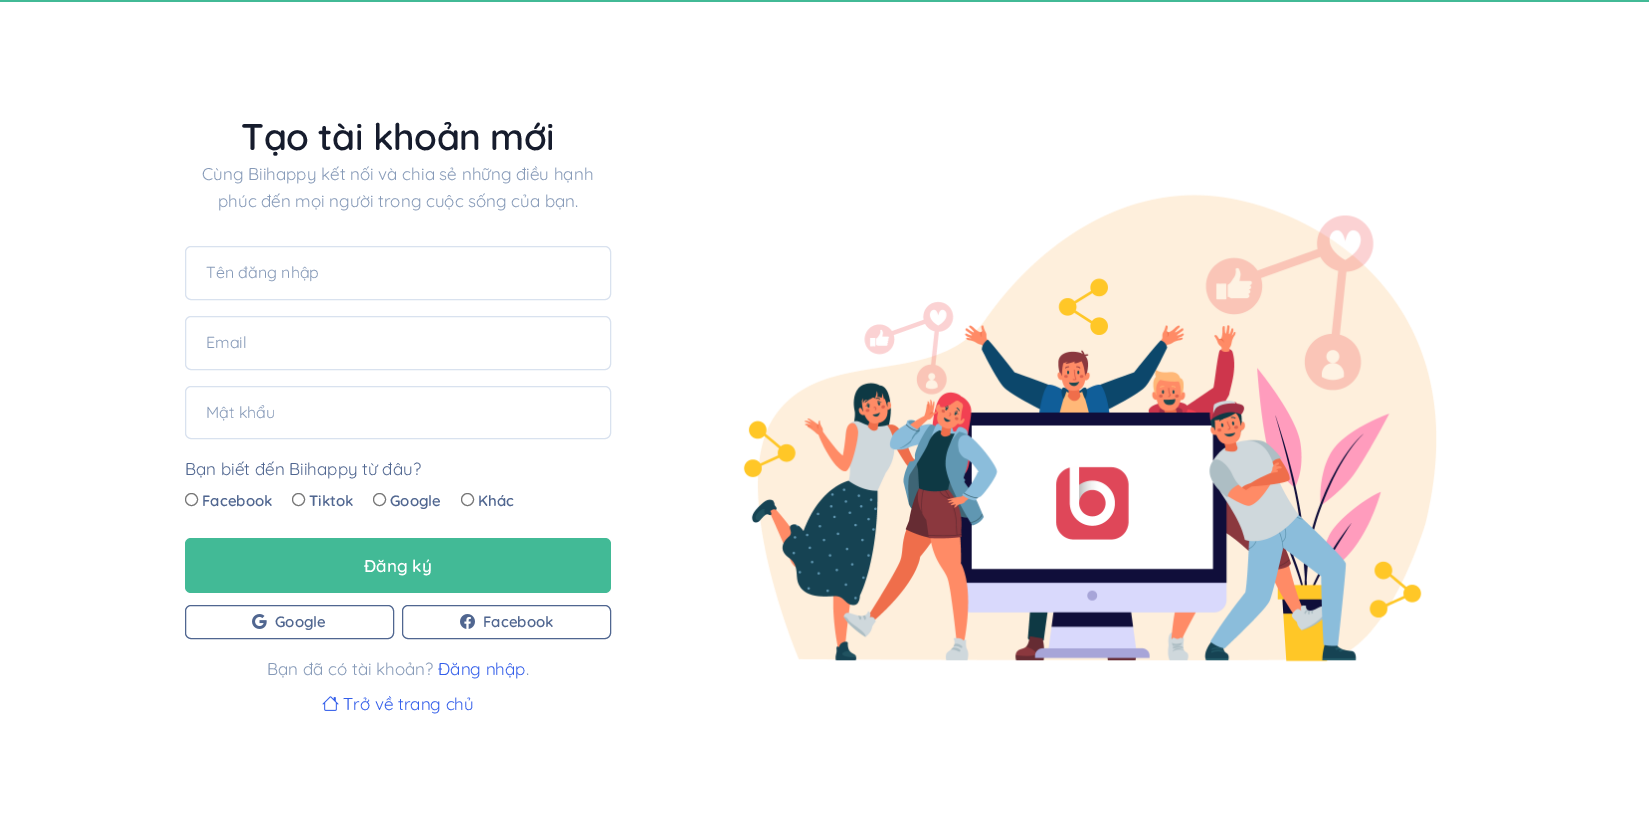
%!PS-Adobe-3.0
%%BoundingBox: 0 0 1649 829
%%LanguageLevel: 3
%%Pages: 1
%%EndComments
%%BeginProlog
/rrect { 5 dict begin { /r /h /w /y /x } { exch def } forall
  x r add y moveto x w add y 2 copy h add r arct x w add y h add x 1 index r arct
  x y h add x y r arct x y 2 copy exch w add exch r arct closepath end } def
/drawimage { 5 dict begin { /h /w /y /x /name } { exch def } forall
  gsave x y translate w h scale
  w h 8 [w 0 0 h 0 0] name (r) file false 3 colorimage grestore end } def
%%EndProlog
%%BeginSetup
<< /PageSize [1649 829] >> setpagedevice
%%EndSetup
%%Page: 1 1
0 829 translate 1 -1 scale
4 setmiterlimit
1 setgray
0 0 1649 829 rectfill
0.259 0.729 0.588 setrgbcolor
0 0 1649 2 rectfill
0.851 0.886 0.937 setrgbcolor
185.5 246.5 425 53 5.5 rrect stroke
185.5 316.5 425 53 5.5 rrect stroke
185.5 386.5 425 52 5.5 rrect stroke
0.463 setgray
newpath 191.5 499.5 6 0 360 arc closepath stroke
newpath 298.5 499.5 6 0 360 arc closepath stroke
newpath 379.5 499.5 6 0 360 arc closepath stroke
newpath 467.5 499.5 6 0 360 arc closepath stroke
0.259 0.729 0.588 setrgbcolor
185 538 426 55 6 rrect fill
0.314 0.4 0.565 setrgbcolor
185.5 605.5 208 33 5.5 rrect stroke
(images/1.raw) 252 614 15 15 drawimage
402.5 605.5 208 33 5.5 rrect stroke
(images/2.raw) 460 614 15 15 drawimage
(images/3.raw) 322 696 17 15 drawimage
(images/4.raw) 743 194 694 468 drawimage
/Quicksand-SemiBold [37 0 0 -37 0 0] selectfont
0.086 0.11 0.176 setrgbcolor
241 150 moveto -0.4 0 (Tạo tài khoản mới) ashow
/Quicksand-Regular [17 0 0 -17 0 0] selectfont
0.525 0.604 0.722 setrgbcolor
202 180 moveto (Cùng Biihappy kết nối và chia sẻ những điều hạnh) show
218 207 moveto (phúc đến mọi người trong cuộc sống của bạn.) show
/Quicksand-Regular [16 0 0 -16 0 0] selectfont
206 278 moveto (Tên đăng nhập) show
206 348 moveto (Email) show
206 418 moveto (Mật khẩu) show
/Quicksand-Regular [17 0 0 -17 0 0] selectfont
0.314 0.4 0.565 setrgbcolor
185 475 moveto (Bạn biết đến Biihappy từ đâu?) show
/Quicksand-SemiBold [15 0 0 -15 0 0] selectfont
202 506 moveto (Facebook) show
309 506 moveto (Tiktok) show
390 506 moveto (Google) show
478 506 moveto (Khác) show
/Quicksand-SemiBold [17 0 0 -17 0 0] selectfont
1 setgray
364 572 moveto (Đăng ký) show
/Quicksand-SemiBold [15 0 0 -15 0 0] selectfont
0.314 0.4 0.565 setrgbcolor
275 627 moveto (Google) show
483 627 moveto (Facebook) show
/Quicksand-Regular [17 0 0 -17 0 0] selectfont
0.525 0.604 0.722 setrgbcolor
267 675 moveto (Bạn đã có tài khoản?) show
0.2 0.369 0.918 setrgbcolor
438 675 moveto (Đăng nhập) show
0.525 0.604 0.722 setrgbcolor
526 675 moveto (.) show
0.2 0.369 0.918 setrgbcolor
343 710 moveto (Trở về trang chủ) show
showpage
%%EOF
